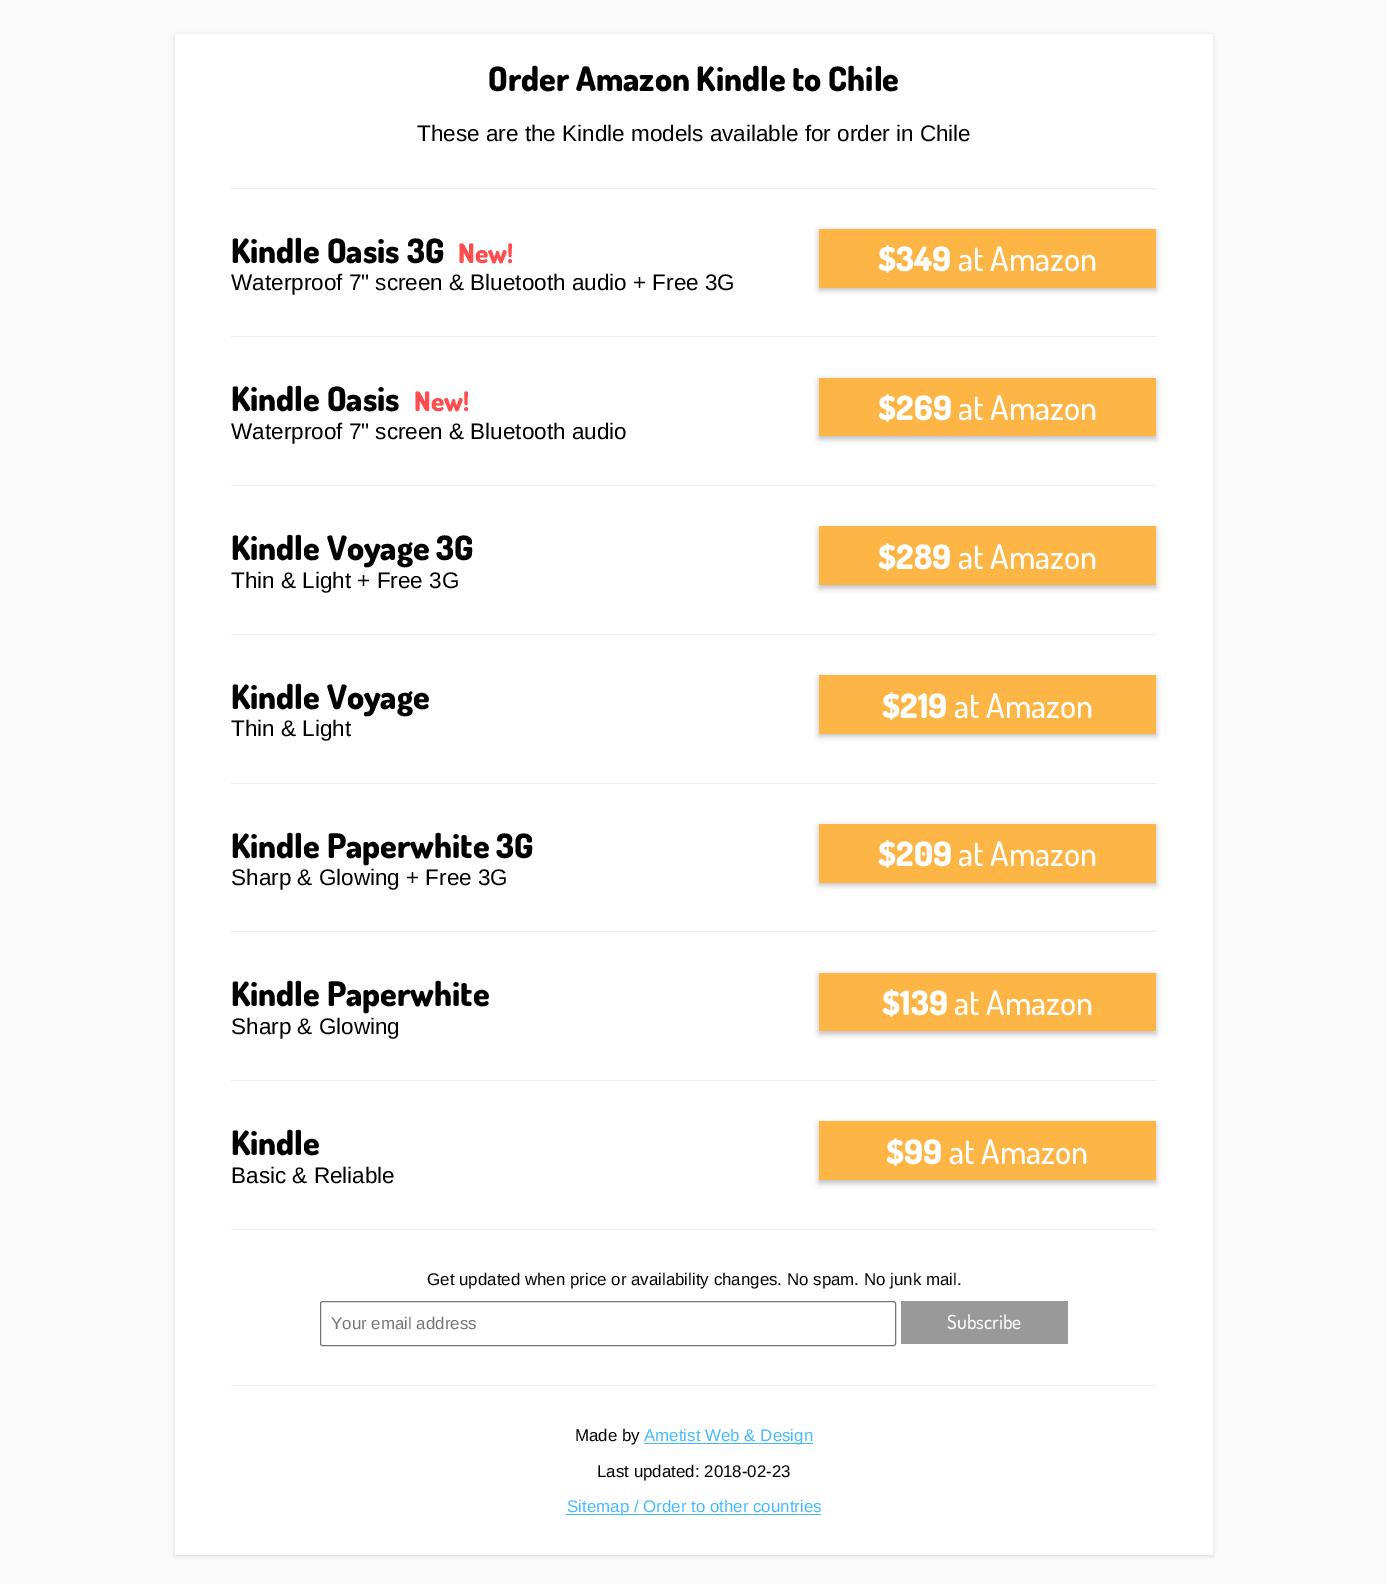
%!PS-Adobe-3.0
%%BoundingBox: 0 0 1387 1584
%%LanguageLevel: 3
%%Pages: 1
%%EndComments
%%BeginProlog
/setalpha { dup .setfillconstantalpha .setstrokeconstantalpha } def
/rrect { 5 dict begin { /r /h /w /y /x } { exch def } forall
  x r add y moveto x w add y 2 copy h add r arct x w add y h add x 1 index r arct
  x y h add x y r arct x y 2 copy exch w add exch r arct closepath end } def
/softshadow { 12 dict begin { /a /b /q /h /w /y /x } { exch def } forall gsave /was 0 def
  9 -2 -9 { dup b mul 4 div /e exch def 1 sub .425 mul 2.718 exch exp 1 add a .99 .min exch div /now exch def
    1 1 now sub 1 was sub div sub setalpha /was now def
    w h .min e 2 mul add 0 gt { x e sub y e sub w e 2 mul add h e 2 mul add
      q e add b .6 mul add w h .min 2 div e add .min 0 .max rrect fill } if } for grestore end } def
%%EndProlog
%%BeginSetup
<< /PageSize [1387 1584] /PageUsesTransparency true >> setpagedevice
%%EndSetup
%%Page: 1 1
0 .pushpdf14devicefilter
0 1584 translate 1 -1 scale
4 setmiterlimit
0.98 setgray
0 0 1387 1584 rectfill
0 setgray
175 35 1038 1521 0 2 0.12 softshadow
1 setgray
175 34 1038 1521 rectfill
0.933 setgray
231 188 925 1 rectfill
0 setgray
819 231 337 59 0 3 0.26 softshadow
0.992 0.714 0.275 setrgbcolor
819 229 337 59 rectfill
0.933 setgray
231 336 925 1 rectfill
0 setgray
819 380 337 59 0 3 0.26 softshadow
0.992 0.714 0.275 setrgbcolor
819 378 337 58 rectfill
0.933 setgray
231 485 925 1 rectfill
0 setgray
819 529 337 59 0 3 0.26 softshadow
0.992 0.714 0.275 setrgbcolor
819 526 337 59 rectfill
0.933 setgray
231 634 925 1 rectfill
0 setgray
819 678 337 58 0 3 0.26 softshadow
0.992 0.714 0.275 setrgbcolor
819 675 337 59 rectfill
0.933 setgray
231 783 925 1 rectfill
0 setgray
819 826 337 59 0 3 0.26 softshadow
0.992 0.714 0.275 setrgbcolor
819 824 337 59 rectfill
0.933 setgray
231 931 925 1 rectfill
0 setgray
819 975 337 59 0 3 0.26 softshadow
0.992 0.714 0.275 setrgbcolor
819 973 337 58 rectfill
0.933 setgray
231 1080 925 1 rectfill
0 setgray
819 1124 337 59 0 3 0.26 softshadow
0.992 0.714 0.275 setrgbcolor
819 1121 337 59 rectfill
0.933 setgray
231 1229 925 1 rectfill
0.463 setgray
320.5 1301.5 575 44 2 rrect stroke
0.6 setgray
901 1301 167 43 rectfill
0.933 setgray
231 1385 925 1 rectfill
0.267 0.733 1 setrgbcolor
644 1443 169 1 rectfill
566 1514 255 1 rectfill
/Dosis-ExtraBold [33.75 0 0 -33.75 0 0] selectfont
0 setgray
488 91 moveto (Order Amazon Kindle to Chile) show
/LiberationSans-Regular [22.5 0 0 -22.5 0 0] selectfont
417 141 moveto (These are the Kindle models available for order in Chile) show
/Dosis-ExtraBold [33.75 0 0 -33.75 0 0] selectfont
231 263 moveto (Kindle Oasis 3G) show
/Dosis-ExtraBold [27 0 0 -27 0 0] selectfont
1 0.298 0.298 setrgbcolor
458 263 moveto (New!) show
/Dosis-ExtraBold [33.75 0 0 -33.75 0 0] selectfont
1 setgray
878 271 moveto ($349) show
/Dosis-Medium [33.75 0 0 -33.75 0 0] selectfont
958 271 moveto (at Amazon) show
/LiberationSans-Regular [22.5 0 0 -22.5 0 0] selectfont
0 setgray
231 290 moveto (Waterproof 7" screen & Bluetooth audio + Free 3G) show
/Dosis-ExtraBold [33.75 0 0 -33.75 0 0] selectfont
231 411 moveto (Kindle Oasis) show
/Dosis-ExtraBold [27 0 0 -27 0 0] selectfont
1 0.298 0.298 setrgbcolor
414 411 moveto (New!) show
/Dosis-ExtraBold [33.75 0 0 -33.75 0 0] selectfont
1 setgray
878 420 moveto ($269) show
/Dosis-Medium [33.75 0 0 -33.75 0 0] selectfont
958 420 moveto (at Amazon) show
/LiberationSans-Regular [22.5 0 0 -22.5 0 0] selectfont
0 setgray
231 439 moveto (Waterproof 7" screen & Bluetooth audio) show
/Dosis-ExtraBold [33.75 0 0 -33.75 0 0] selectfont
231 560 moveto (Kindle Voyage 3G) show
1 setgray
878 569 moveto ($289) show
/Dosis-Medium [33.75 0 0 -33.75 0 0] selectfont
958 569 moveto (at Amazon) show
/LiberationSans-Regular [22.5 0 0 -22.5 0 0] selectfont
0 setgray
231 588 moveto (Thin & Light + Free 3G) show
/Dosis-ExtraBold [33.75 0 0 -33.75 0 0] selectfont
231 709 moveto (Kindle Voyage) show
1 setgray
882 718 moveto ($219) show
/Dosis-Medium [33.75 0 0 -33.75 0 0] selectfont
954 718 moveto (at Amazon) show
/LiberationSans-Regular [22.5 0 0 -22.5 0 0] selectfont
0 setgray
231 736 moveto (Thin & Light) show
/Dosis-ExtraBold [33.75 0 0 -33.75 0 0] selectfont
231 858 moveto (Kindle Paperwhite 3G) show
1 setgray
878 866 moveto ($209) show
/Dosis-Medium [33.75 0 0 -33.75 0 0] selectfont
958 866 moveto (at Amazon) show
/LiberationSans-Regular [22.5 0 0 -22.5 0 0] selectfont
0 setgray
231 885 moveto (Sharp & Glowing + Free 3G) show
/Dosis-ExtraBold [33.75 0 0 -33.75 0 0] selectfont
231 1006 moveto (Kindle Paperwhite) show
1 setgray
882 1015 moveto ($139) show
/Dosis-Medium [33.75 0 0 -33.75 0 0] selectfont
954 1015 moveto (at Amazon) show
/LiberationSans-Regular [22.5 0 0 -22.5 0 0] selectfont
0 setgray
231 1034 moveto (Sharp & Glowing) show
/Dosis-ExtraBold [33.75 0 0 -33.75 0 0] selectfont
231 1155 moveto (Kindle) show
1 setgray
886 1164 moveto ($99) show
/Dosis-Medium [33.75 0 0 -33.75 0 0] selectfont
949 1164 moveto (at Amazon) show
/LiberationSans-Regular [22.5 0 0 -22.5 0 0] selectfont
0 setgray
231 1183 moveto (Basic & Reliable) show
/LiberationSans-Regular [16.9 0 0 -16.9 0 0] selectfont
427 1285 moveto (Get updated when price or availability changes. No spam. No junk mail.) show
0.459 setgray
331 1329 moveto (Your email address) show
/Dosis-Medium [19.5 0 0 -19.5 0 0] selectfont
1 setgray
947 1329 moveto (Subscribe) show
/LiberationSans-Regular [16.9 0 0 -16.9 0 0] selectfont
0 setgray
575 1441 moveto (Made by) show
0.267 0.733 1 setrgbcolor
644 1441 moveto (Ametist Web & Design) show
0 setgray
597 1477 moveto (Last updated: 2018-02-23) show
0.267 0.733 1 setrgbcolor
567 1512 moveto (Sitemap / Order to other countries) show
.poppdf14devicefilter showpage
%%EOF
